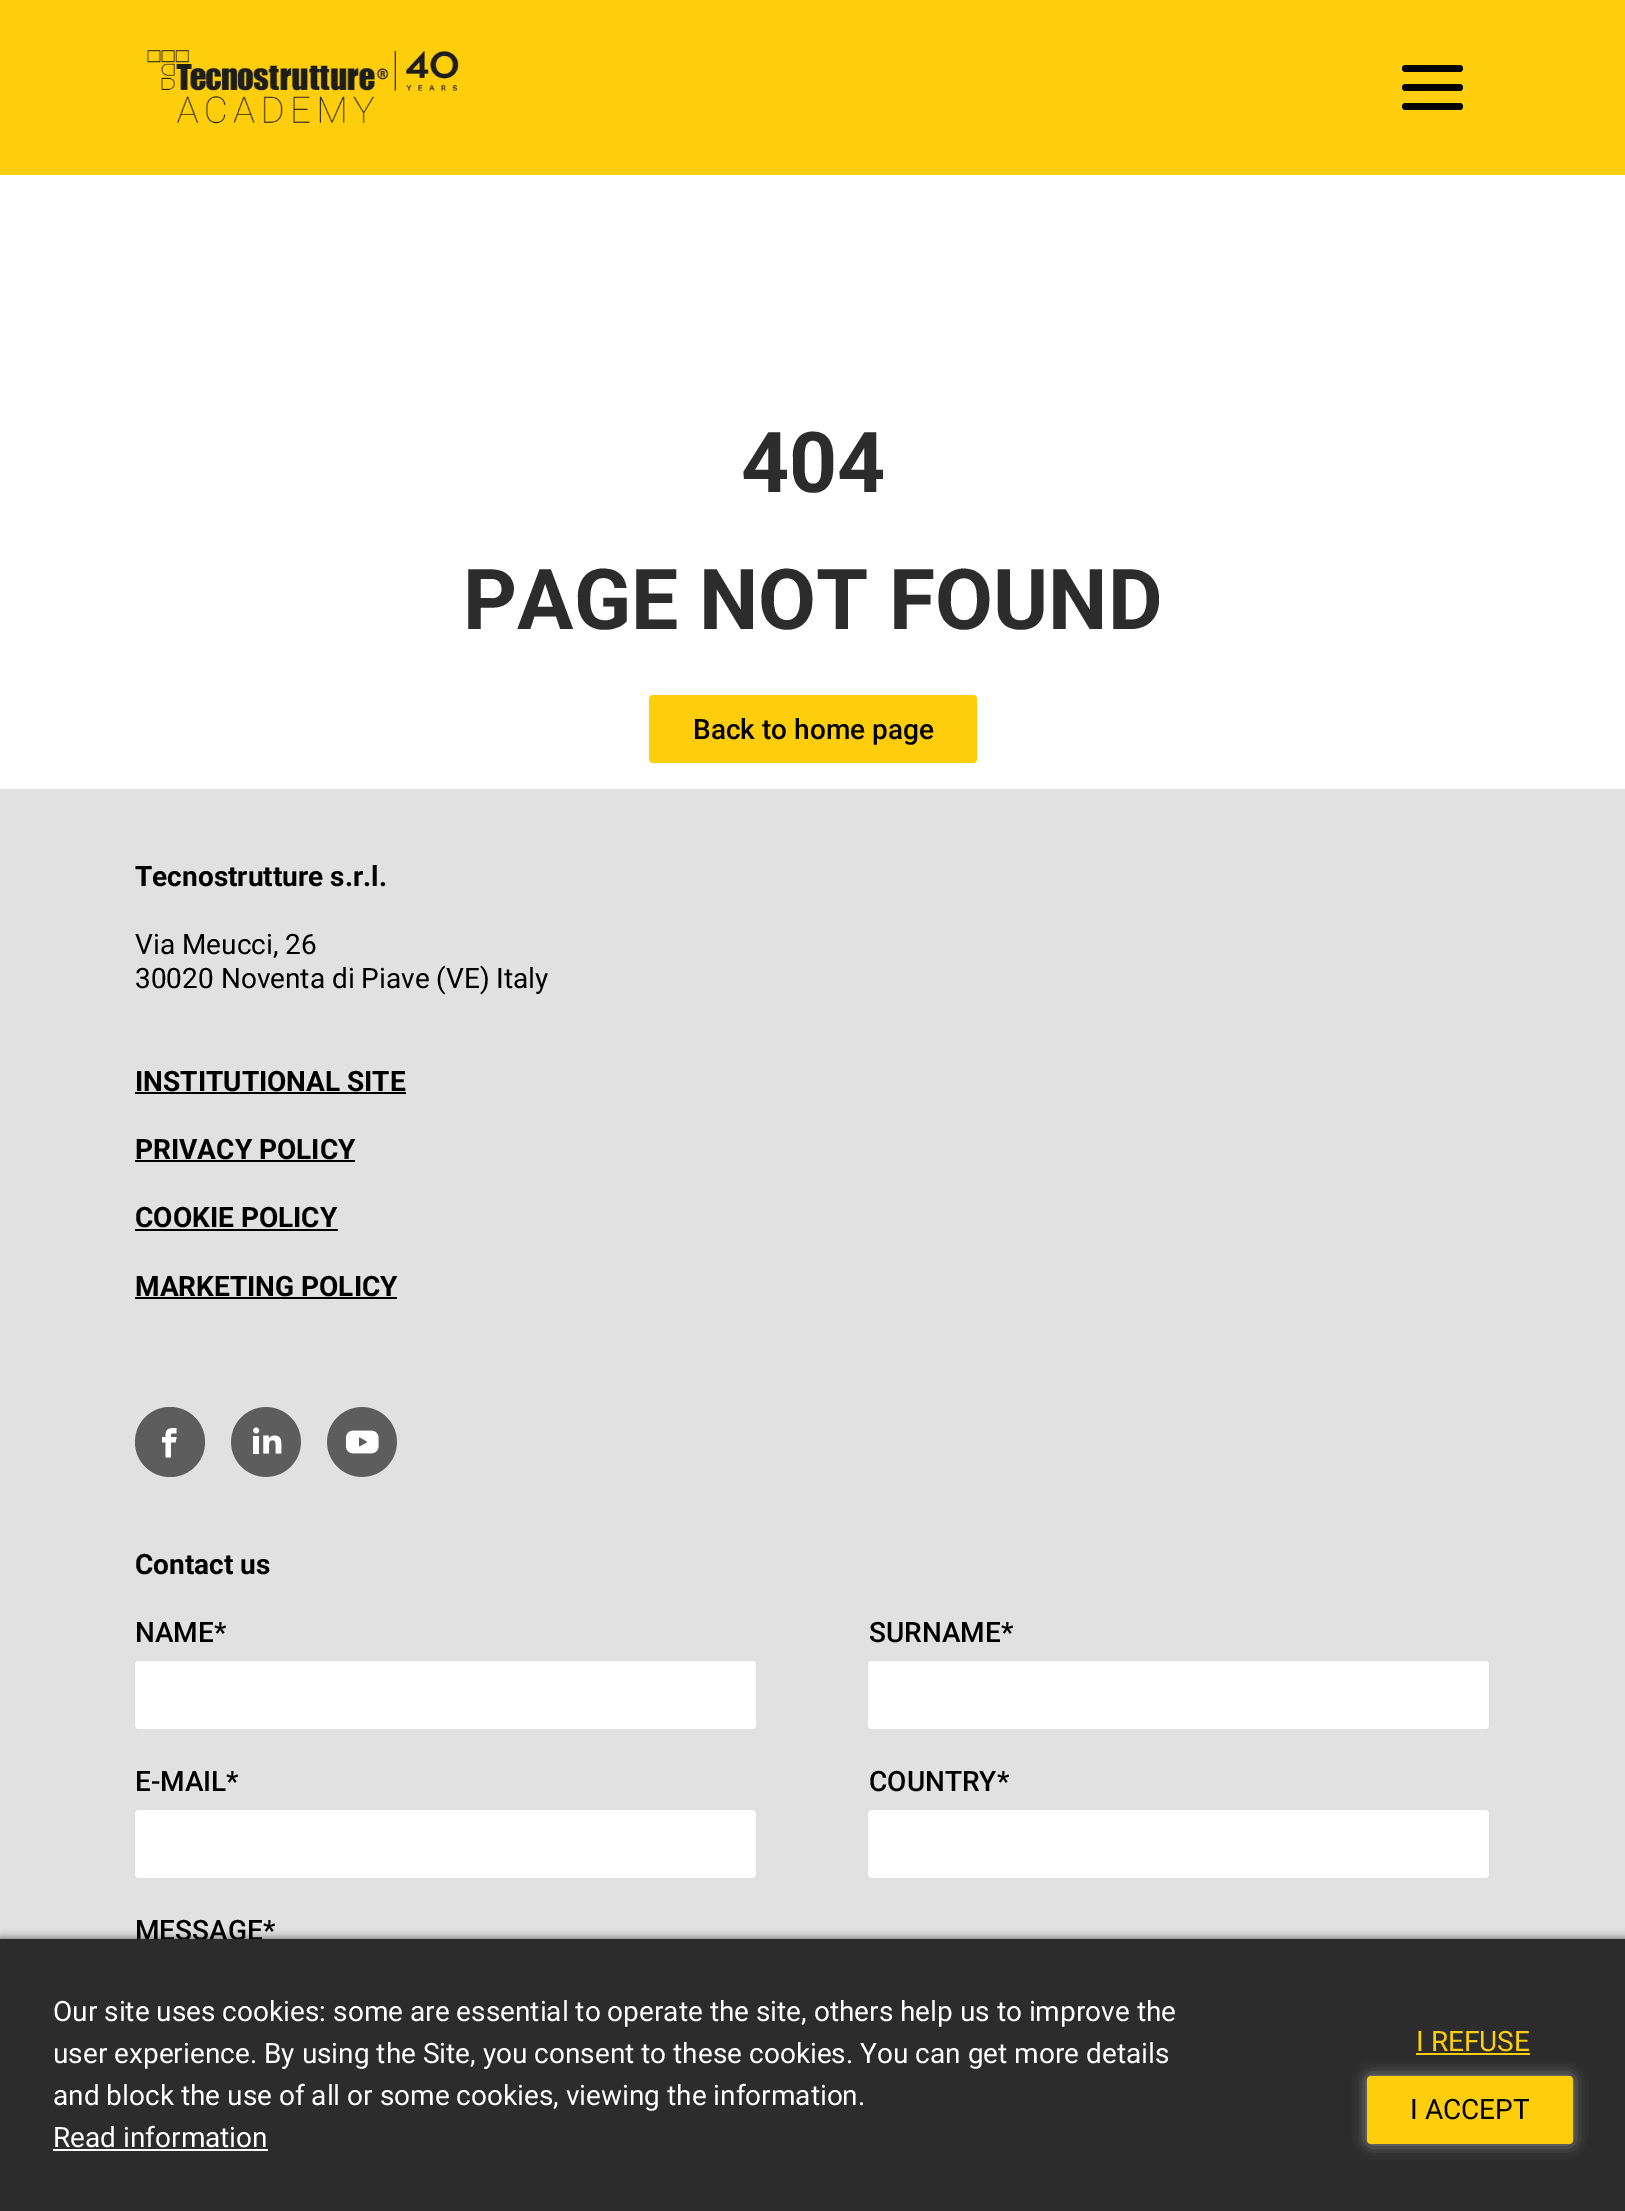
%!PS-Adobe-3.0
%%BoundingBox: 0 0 1625 2211
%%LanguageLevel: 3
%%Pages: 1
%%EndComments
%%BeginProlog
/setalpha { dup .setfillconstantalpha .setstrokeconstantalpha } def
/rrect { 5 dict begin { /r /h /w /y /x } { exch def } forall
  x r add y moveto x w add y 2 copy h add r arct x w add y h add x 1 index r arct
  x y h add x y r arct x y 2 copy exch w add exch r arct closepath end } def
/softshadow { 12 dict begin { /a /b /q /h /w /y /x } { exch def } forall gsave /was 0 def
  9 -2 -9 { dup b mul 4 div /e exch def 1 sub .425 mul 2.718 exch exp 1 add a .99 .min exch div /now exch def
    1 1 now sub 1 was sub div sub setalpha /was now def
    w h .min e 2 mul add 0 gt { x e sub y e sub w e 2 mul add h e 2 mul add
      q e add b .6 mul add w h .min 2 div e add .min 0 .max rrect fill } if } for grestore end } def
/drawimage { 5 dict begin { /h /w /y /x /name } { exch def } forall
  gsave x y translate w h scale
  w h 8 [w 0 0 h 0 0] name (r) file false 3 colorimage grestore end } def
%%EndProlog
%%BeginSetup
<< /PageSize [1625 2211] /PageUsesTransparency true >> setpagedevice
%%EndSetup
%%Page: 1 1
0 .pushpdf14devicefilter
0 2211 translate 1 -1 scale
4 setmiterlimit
1 setgray
0 0 1625 2211 rectfill
0.996 0.808 0.051 setrgbcolor
0 0 1625 175 rectfill
(images/1.raw) 147 50 312 74 drawimage
0 setgray
1402 65 61 7 3.5 rrect fill
1402 84 61 7 3.5 rrect fill
1402 103 61 7 3.5 rrect fill
0.996 0.808 0.051 setrgbcolor
649 695 328 68 4 rrect fill
0.882 setgray
0 789 1625 1150 rectfill
0 setgray
135 1092 271 2 rectfill
135 1160 220 2 rectfill
135 1229 203 2 rectfill
135 1297 262 2 rectfill
0.365 setgray
newpath 170 1442 35 0 360 arc closepath fill
1 setgray
newpath 172 1433.5 moveto 176.5 1433.5 lineto 176.5 1428 lineto 168.5 1428 165.5 1428.5 165.5 1437 curveto 162 1437 lineto 162 1442.5 lineto 165.5 1442.5 lineto 165.5 1457.5 lineto 171 1457.5 lineto 171 1442.5 lineto 175.5 1442.5 lineto 176.5 1437 lineto 171 1437 lineto 171 1436.5 170 1433.5 172 1433.5 curveto closepath fill
(images/2.raw) 231 1407 70 70 drawimage
(images/3.raw) 327 1407 70 70 drawimage
135 1661 621 68 4 rrect fill
868 1661 621 68 4 rrect fill
135 1810 621 68 4 rrect fill
868 1810 621 68 4 rrect fill
0.122 setgray
0 1939 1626 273 0 4.5 0.7 softshadow
/Roboto-Bold [84 0 0 -84 0 0] selectfont
0.173 setgray
741 492 moveto (404) show
463 629 moveto (PAGE NOT FOUND) show
/Roboto-Medium [28 0 0 -28 0 0] selectfont
0 setgray
693 739 moveto (Back to home page) show
/Roboto-Bold [28 0 0 -28 0 0] selectfont
135 886 moveto (Tecnostrutture s.r.l.) show
/Roboto-Regular [28 0 0 -28 0 0] selectfont
135 954 moveto (Via Meucci, 26) show
135 988 moveto (30020 Noventa di Piave \(VE\) Italy) show
/Roboto-Bold [28 0 0 -28 0 0] selectfont
135 1091 moveto (INSTITUTIONAL SITE) show
135 1159 moveto (PRIVACY POLICY) show
135 1227 moveto (COOKIE POLICY) show
135 1296 moveto (MARKETING POLICY) show
135 1574 moveto (Contact us) show
/Roboto-Medium [28 0 0 -28 0 0] selectfont
135 1642 moveto (NAME*) show
869 1642 moveto (SURNAME*) show
135 1791 moveto (E-MAIL*) show
869 1791 moveto (COUNTRY*) show
135 1940 moveto (MESSAGE*) show
0.173 setgray
0 1939 1625 272 rectfill
/Roboto-Regular [28 0 0 -28 0 0] selectfont
1 setgray
53 2021 moveto (Our site uses cookies: some are essential to operate the site, others help us to improve the) show
53 2063 moveto (user experience. By using the Site, you consent to these cookies. You can get more details) show
53 2105 moveto (and block the use of all or some cookies, viewing the information.) show
53 2147 moveto (Read information) show
53 2149 215 2 rectfill
0.996 0.808 0.051 setrgbcolor
1416 2051 moveto (I REFUSE) show
1416 2053 114 2 rectfill
1 setgray
1367 2076 206 68 4 7 0.5 softshadow
0.996 0.808 0.051 setrgbcolor
1367 2076 206 68 4 rrect fill
0 setgray
1410 2119 moveto (I ACCEPT) show
.poppdf14devicefilter showpage
%%EOF
